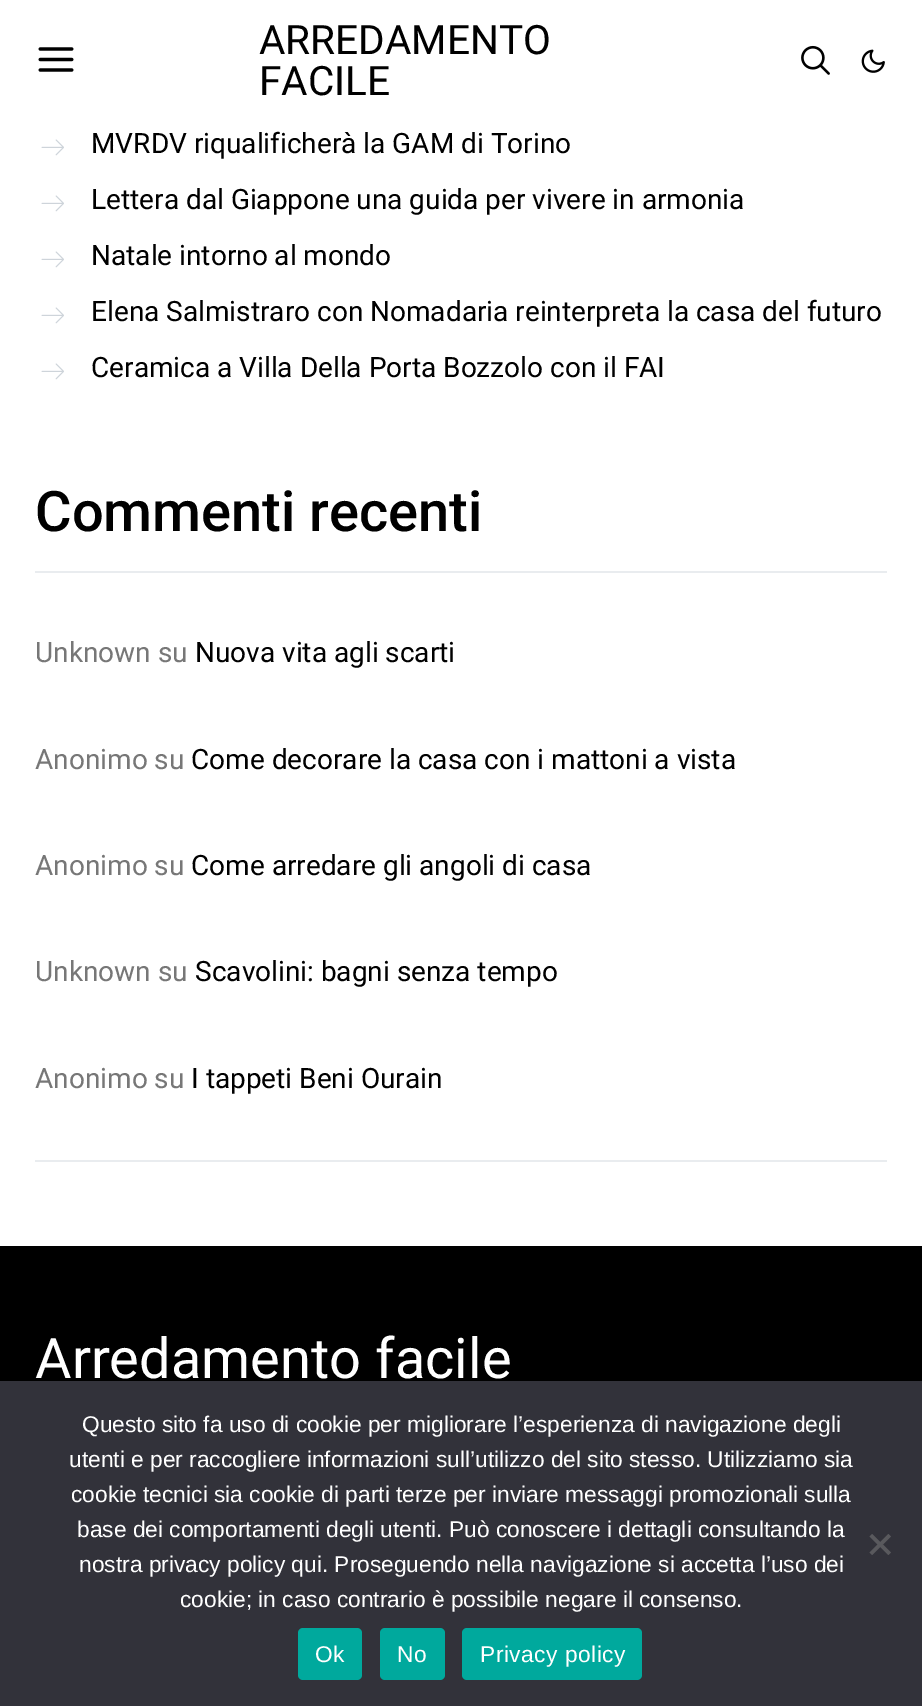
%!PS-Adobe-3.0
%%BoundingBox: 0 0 922 1706
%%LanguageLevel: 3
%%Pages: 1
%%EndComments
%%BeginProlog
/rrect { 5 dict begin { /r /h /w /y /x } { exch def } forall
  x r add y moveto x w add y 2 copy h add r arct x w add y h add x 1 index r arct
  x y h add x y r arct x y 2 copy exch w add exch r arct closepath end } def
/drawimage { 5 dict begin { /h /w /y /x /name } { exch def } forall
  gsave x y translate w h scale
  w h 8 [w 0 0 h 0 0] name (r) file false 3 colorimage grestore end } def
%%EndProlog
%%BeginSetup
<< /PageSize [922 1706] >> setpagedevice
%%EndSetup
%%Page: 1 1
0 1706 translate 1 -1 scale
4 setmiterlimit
1 setgray
0 0 922 1706 rectfill
(images/1.raw) 38 47 36 25 drawimage
(images/2.raw) 801 45 29 30 drawimage
(images/3.raw) 861 49 24 24 drawimage
(images/4.raw) 41 139 23 17 drawimage
(images/4.raw) 41 195 23 17 drawimage
(images/4.raw) 41 251 23 17 drawimage
(images/4.raw) 41 307 23 17 drawimage
(images/4.raw) 41 363 23 17 drawimage
0.914 0.925 0.937 setrgbcolor
35 571 852 2 rectfill
35 1160 852 2 rectfill
0 setgray
0 1246 922 135 rectfill
0.196 0.196 0.227 setrgbcolor
0 1381 922 325 rectfill
0.349 0.349 0.365 setrgbcolor
newpath 888.5 1534 moveto 891 1536.5 lineto 872 1555 lineto 869.5 1552.5 lineto closepath fill
newpath 869.5 1536.5 moveto 872 1534 lineto 891 1552.5 lineto 888.5 1555 lineto closepath fill
0 0.663 0.616 setrgbcolor
298 1628 64 52 5 rrect fill
380 1628 65 52 5 rrect fill
462 1628 180 52 5 rrect fill
/Roboto-Regular [40.5 0 0 -40.5 0 0] selectfont
0 setgray
259 54 moveto (ARREDAMENTO) show
259 95 moveto (FACILE) show
/Roboto-Regular [28 0 0 -28 0 0] selectfont
91 153 moveto (MVRDV riqualificherà la GAM di Torino) show
91 209 moveto (Lettera dal Giappone una guida per vivere in armonia) show
91 265 moveto (Natale intorno al mondo) show
91 321 moveto (Elena Salmistraro con Nomadaria reinterpreta la casa del futuro) show
91 377 moveto (Ceramica a Villa Della Porta Bozzolo con il FAI) show
/Roboto-Medium [56 0 0 -56 0 0] selectfont
35 531 moveto (Commenti recenti) show
/Roboto-Regular [28 0 0 -28 0 0] selectfont
0.467 setgray
35 662 moveto (Unknown su) show
0 setgray
195 662 moveto (Nuova vita agli scarti) show
0.467 setgray
35 769 moveto (Anonimo su) show
0 setgray
191 769 moveto (Come decorare la casa con i mattoni a vista) show
0.467 setgray
35 875 moveto (Anonimo su) show
0 setgray
191 875 moveto (Come arredare gli angoli di casa) show
0.467 setgray
35 981 moveto (Unknown su) show
0 setgray
195 981 moveto (Scavolini: bagni senza tempo) show
0.467 setgray
35 1088 moveto (Anonimo su) show
0 setgray
191 1088 moveto (I tappeti Beni Ourain) show
/Roboto-Regular [56 0 0 -56 0 0] selectfont
1 setgray
35 1378 moveto (Arredamento facile) show
/LiberationSans-Regular [22.75 0 0 -22.75 0 0] selectfont
82 1432 moveto (Questo sito fa uso di cookie per migliorare l’esperienza di navigazione degli) show
69 1467 moveto (utenti e per raccogliere informazioni sull’utilizzo del sito stesso. Utilizziamo sia) show
71 1502 moveto (cookie tecnici sia cookie di parti terze per inviare messaggi promozionali sulla) show
77 1537 moveto (base dei comportamenti degli utenti. Può conoscere i dettagli consultando la) show
79 1572 moveto (nostra privacy policy qui. Proseguendo nella navigazione si accetta l’uso dei) show
180 1607 moveto (cookie; in caso contrario è possibile negare il consenso.) show
315 1662 moveto 0.5 0 (Ok) ashow
397 1662 moveto 0.5 0 (No) ashow
480 1662 moveto 0.5 0 (Privacy policy) ashow
showpage
%%EOF
